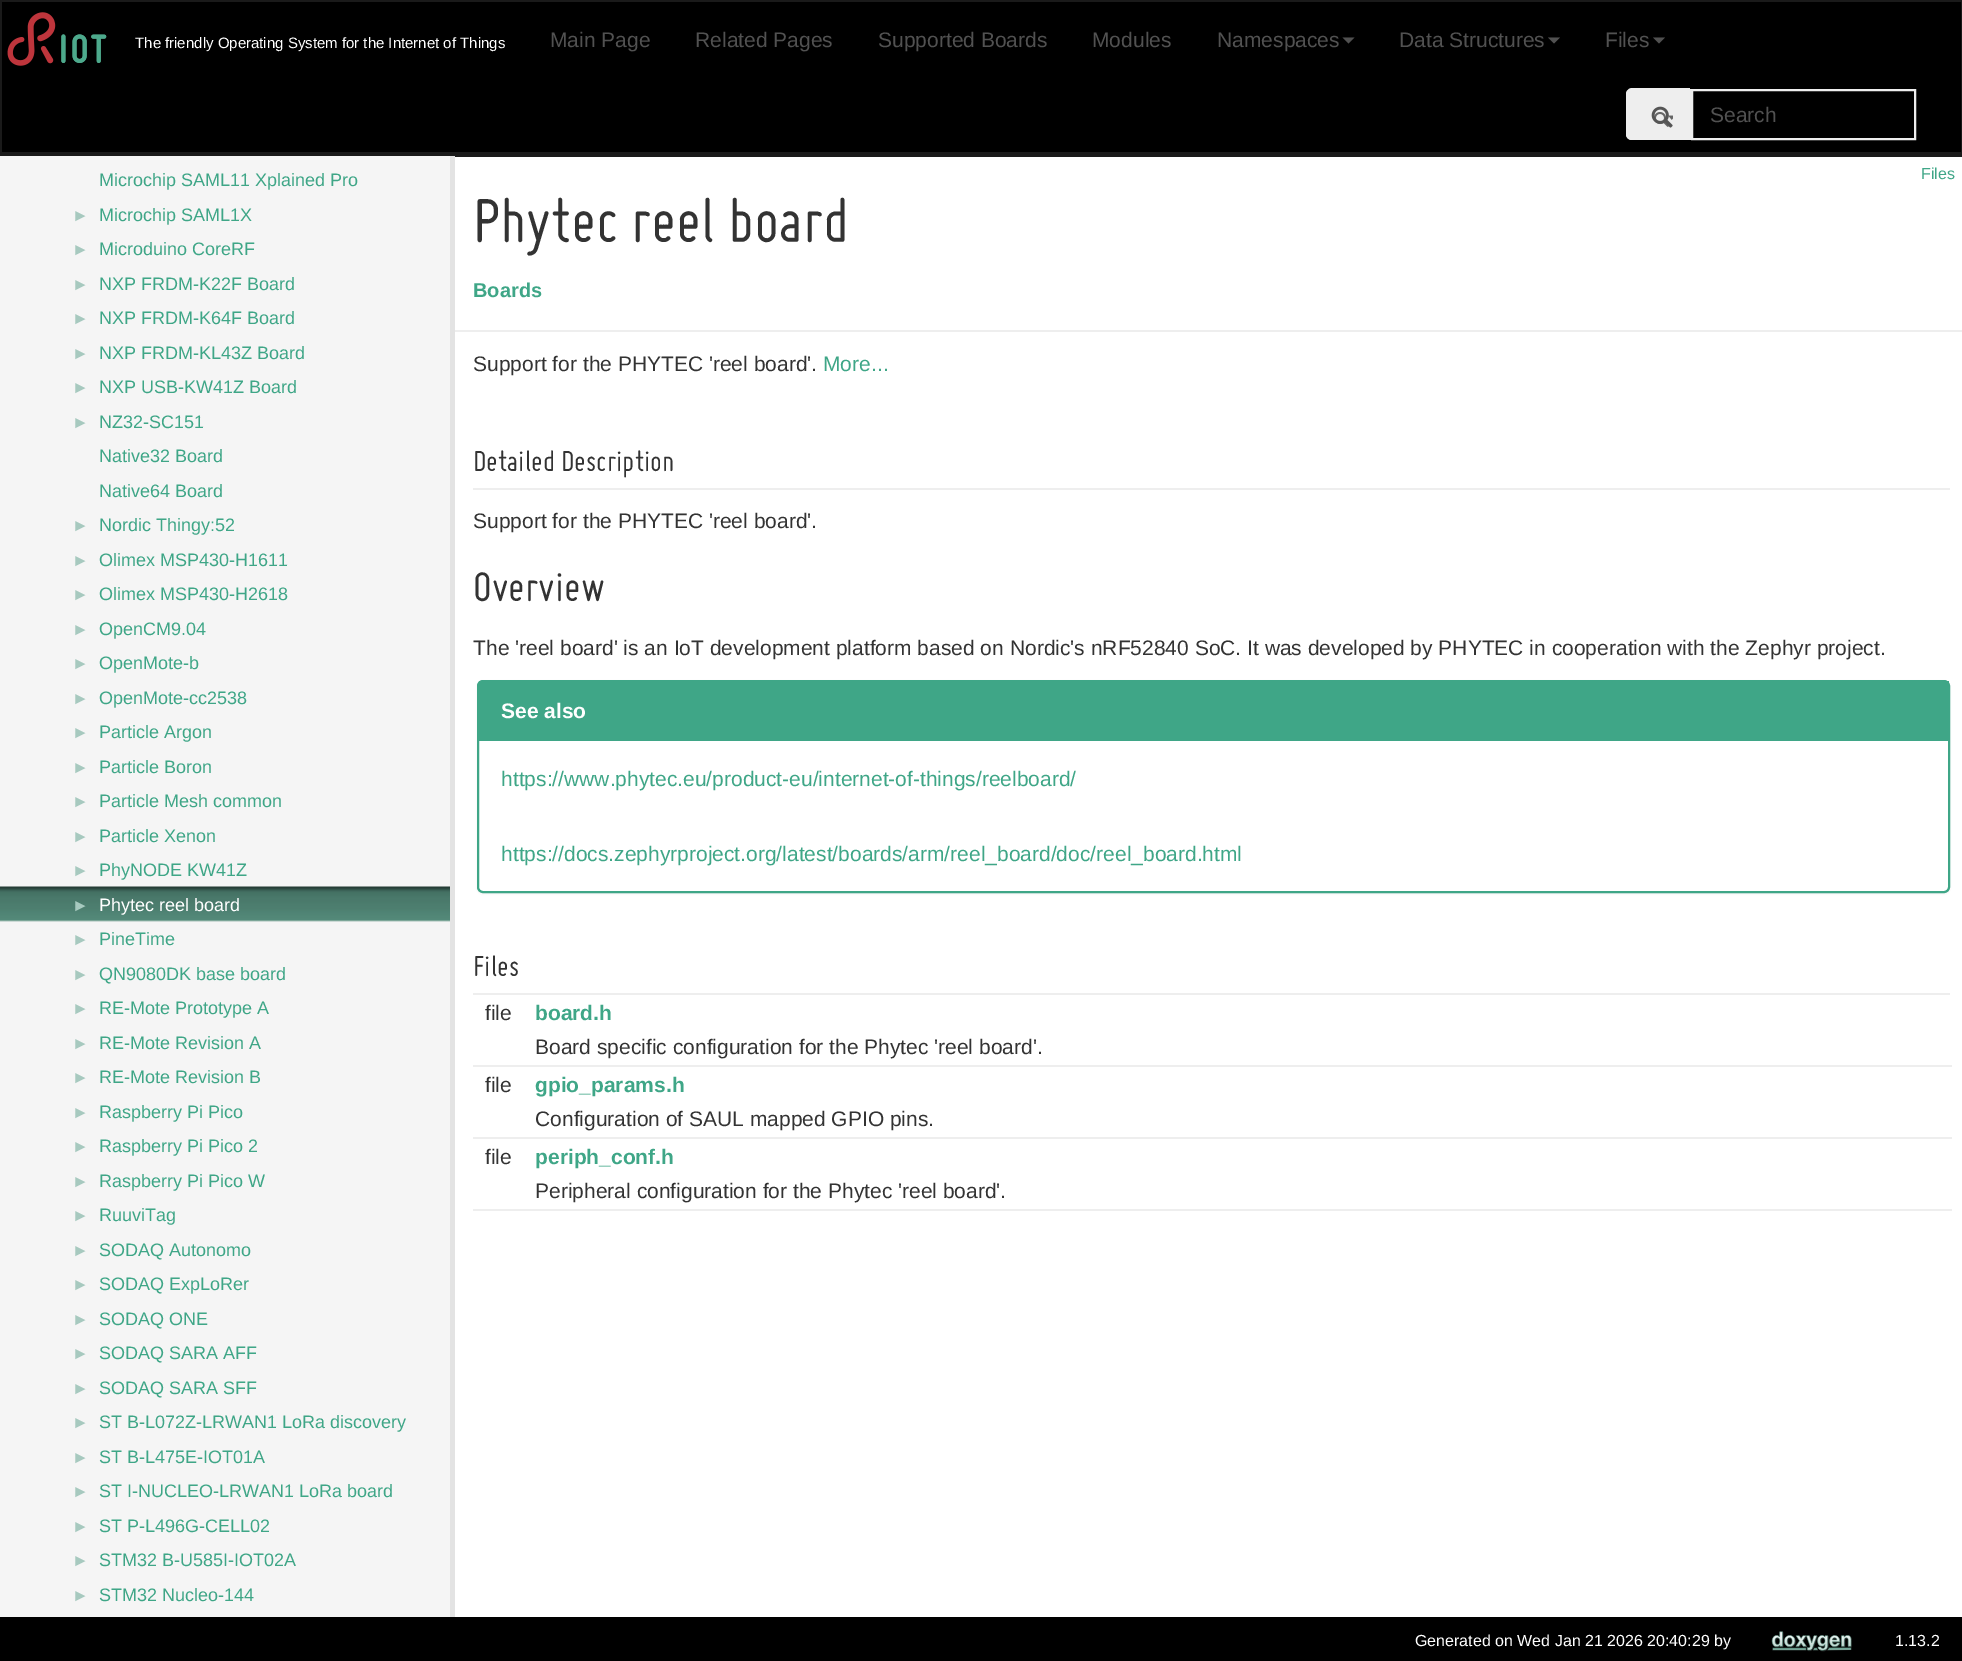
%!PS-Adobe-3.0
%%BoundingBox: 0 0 1962 1661
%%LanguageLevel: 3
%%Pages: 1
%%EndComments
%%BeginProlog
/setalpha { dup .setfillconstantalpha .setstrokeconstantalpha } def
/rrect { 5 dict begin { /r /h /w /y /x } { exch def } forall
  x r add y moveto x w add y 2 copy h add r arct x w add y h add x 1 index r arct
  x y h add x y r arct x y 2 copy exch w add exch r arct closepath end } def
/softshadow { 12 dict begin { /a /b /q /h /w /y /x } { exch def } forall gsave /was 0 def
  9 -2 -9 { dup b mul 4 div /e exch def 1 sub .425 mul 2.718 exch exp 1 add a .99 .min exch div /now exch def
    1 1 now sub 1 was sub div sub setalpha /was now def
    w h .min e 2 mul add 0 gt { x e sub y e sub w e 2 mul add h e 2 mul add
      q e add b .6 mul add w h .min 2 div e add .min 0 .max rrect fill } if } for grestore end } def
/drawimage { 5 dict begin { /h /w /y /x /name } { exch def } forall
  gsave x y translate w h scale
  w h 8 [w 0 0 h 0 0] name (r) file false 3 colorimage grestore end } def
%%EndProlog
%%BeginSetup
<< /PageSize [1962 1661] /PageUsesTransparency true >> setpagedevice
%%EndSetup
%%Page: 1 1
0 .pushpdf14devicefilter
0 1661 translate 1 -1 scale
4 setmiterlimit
1 setgray
0 0 1962 1661 rectfill
0 setgray
2 2 1959 150 rectfill
0.102 setgray
0 0 1962 2 rectfill
1961 0 1 156 rectfill
0 152 1962 5 rectfill
0 0 2 156 rectfill
(images/1.raw) 7 12 100 54 drawimage
0.318 setgray
newpath 1342.5 37.5 moveto 1354.5 37.5 lineto 1348.5 43.5 lineto closepath fill
newpath 1548 37.5 moveto 1560 37.5 lineto 1554 43.5 lineto closepath fill
newpath 1653 37.5 moveto 1665 37.5 lineto 1659 43.5 lineto closepath fill
0.933 setgray
newpath 1632 89 moveto 1691 89 lineto 1691 140 lineto 1632 140 lineto 1628.5 140 1626 137.5 1626 134 curveto 1626 95 lineto 1626 91.5 1628.5 89 1632 89 curveto closepath fill
newpath 1632 88 moveto 1690 88 lineto 1690 140 lineto 1632 140 lineto 1629 140 1626 137 1626 134 curveto 1626 94 lineto 1626 91 1629 88 1632 88 curveto closepath 1632 90 moveto 1690 90 lineto 1690 138 lineto 1632 138 lineto 1630 138 1628 136 1628 134 curveto 1628 94 lineto 1628 92 1630 90 1632 90 curveto closepath eofill
(images/3.raw) 1654 112 19 15 drawimage
(images/2.raw) 1651 106 22 22 drawimage
2 setlinewidth
1692 90 223 49 rectstroke
0.961 setgray
0 156 450 1461 rectfill
(images/4.raw) 0 886 450 36 drawimage
0.89 setgray
450 156 5 1461 rectfill
0.933 setgray
455 330 1507 2 rectfill
473 488 1477 2 rectfill
0 setgray
477 681 1473 213 6 1 0.05 softshadow
1 setgray
478 681 1471 211 5 rrect gsave fill grestore
0.247 0.651 0.529 setrgbcolor
stroke
479 681 1470 60 rectfill
0.933 setgray
473 993 1477 2 rectfill
473 1065 1479 2 rectfill
473 1137 1479 2 rectfill
473 1209 1479 2 rectfill
0 setgray
0 1617 1962 44 rectfill
(images/5.raw) 1771 1631 81 21 drawimage
/LiberationSans-Regular [15 0 0 -15 0 0] selectfont
1 setgray
135 48 moveto (The friendly Operating System for the Internet of Things) show
/LiberationSans-Regular [21 0 0 -21 0 0] selectfont
0.318 setgray
550 47 moveto (Main Page) show
695 47 moveto (Related Pages) show
878 47 moveto (Supported Boards) show
1092 47 moveto (Modules) show
1217 47 moveto (Namespaces) show
1399 47 moveto (Data Structures) show
1605 47 moveto (Files) show
1710 122 moveto (Search) show
/LiberationSans-Regular [18 0 0 -18 0 0] selectfont
0.247 0.651 0.529 setrgbcolor
99 186 moveto (Microchip SAML11 Xplained Pro) show
/LiberationSans-Regular [17 0 0 -17 0 0] selectfont
0.655 0.788 0.749 setrgbcolor
72 221 moveto (►) show
/LiberationSans-Regular [18 0 0 -18 0 0] selectfont
0.247 0.651 0.529 setrgbcolor
99 221 moveto (Microchip SAML1X) show
/LiberationSans-Regular [17 0 0 -17 0 0] selectfont
0.655 0.788 0.749 setrgbcolor
72 255 moveto (►) show
/LiberationSans-Regular [18 0 0 -18 0 0] selectfont
0.247 0.651 0.529 setrgbcolor
99 255 moveto (Microduino CoreRF) show
/LiberationSans-Regular [17 0 0 -17 0 0] selectfont
0.655 0.788 0.749 setrgbcolor
72 290 moveto (►) show
/LiberationSans-Regular [18 0 0 -18 0 0] selectfont
0.247 0.651 0.529 setrgbcolor
99 290 moveto (NXP FRDM-K22F Board) show
/LiberationSans-Regular [17 0 0 -17 0 0] selectfont
0.655 0.788 0.749 setrgbcolor
72 324 moveto (►) show
/LiberationSans-Regular [18 0 0 -18 0 0] selectfont
0.247 0.651 0.529 setrgbcolor
99 324 moveto (NXP FRDM-K64F Board) show
/LiberationSans-Regular [17 0 0 -17 0 0] selectfont
0.655 0.788 0.749 setrgbcolor
72 359 moveto (►) show
/LiberationSans-Regular [18 0 0 -18 0 0] selectfont
0.247 0.651 0.529 setrgbcolor
99 359 moveto (NXP FRDM-KL43Z Board) show
/LiberationSans-Regular [17 0 0 -17 0 0] selectfont
0.655 0.788 0.749 setrgbcolor
72 393 moveto (►) show
/LiberationSans-Regular [18 0 0 -18 0 0] selectfont
0.247 0.651 0.529 setrgbcolor
99 393 moveto (NXP USB-KW41Z Board) show
/LiberationSans-Regular [17 0 0 -17 0 0] selectfont
0.655 0.788 0.749 setrgbcolor
72 428 moveto (►) show
/LiberationSans-Regular [18 0 0 -18 0 0] selectfont
0.247 0.651 0.529 setrgbcolor
99 428 moveto (NZ32-SC151) show
99 462 moveto (Native32 Board) show
99 497 moveto (Native64 Board) show
/LiberationSans-Regular [17 0 0 -17 0 0] selectfont
0.655 0.788 0.749 setrgbcolor
72 531 moveto (►) show
/LiberationSans-Regular [18 0 0 -18 0 0] selectfont
0.247 0.651 0.529 setrgbcolor
99 531 moveto (Nordic Thingy:52) show
/LiberationSans-Regular [17 0 0 -17 0 0] selectfont
0.655 0.788 0.749 setrgbcolor
72 566 moveto (►) show
/LiberationSans-Regular [18 0 0 -18 0 0] selectfont
0.247 0.651 0.529 setrgbcolor
99 566 moveto (Olimex MSP430-H1611) show
/LiberationSans-Regular [17 0 0 -17 0 0] selectfont
0.655 0.788 0.749 setrgbcolor
72 600 moveto (►) show
/LiberationSans-Regular [18 0 0 -18 0 0] selectfont
0.247 0.651 0.529 setrgbcolor
99 600 moveto (Olimex MSP430-H2618) show
/LiberationSans-Regular [17 0 0 -17 0 0] selectfont
0.655 0.788 0.749 setrgbcolor
72 635 moveto (►) show
/LiberationSans-Regular [18 0 0 -18 0 0] selectfont
0.247 0.651 0.529 setrgbcolor
99 635 moveto (OpenCM9.04) show
/LiberationSans-Regular [17 0 0 -17 0 0] selectfont
0.655 0.788 0.749 setrgbcolor
72 669 moveto (►) show
/LiberationSans-Regular [18 0 0 -18 0 0] selectfont
0.247 0.651 0.529 setrgbcolor
99 669 moveto (OpenMote-b) show
/LiberationSans-Regular [17 0 0 -17 0 0] selectfont
0.655 0.788 0.749 setrgbcolor
72 704 moveto (►) show
/LiberationSans-Regular [18 0 0 -18 0 0] selectfont
0.247 0.651 0.529 setrgbcolor
99 704 moveto (OpenMote-cc2538) show
/LiberationSans-Regular [17 0 0 -17 0 0] selectfont
0.655 0.788 0.749 setrgbcolor
72 738 moveto (►) show
/LiberationSans-Regular [18 0 0 -18 0 0] selectfont
0.247 0.651 0.529 setrgbcolor
99 738 moveto (Particle Argon) show
/LiberationSans-Regular [17 0 0 -17 0 0] selectfont
0.655 0.788 0.749 setrgbcolor
72 773 moveto (►) show
/LiberationSans-Regular [18 0 0 -18 0 0] selectfont
0.247 0.651 0.529 setrgbcolor
99 773 moveto (Particle Boron) show
/LiberationSans-Regular [17 0 0 -17 0 0] selectfont
0.655 0.788 0.749 setrgbcolor
72 807 moveto (►) show
/LiberationSans-Regular [18 0 0 -18 0 0] selectfont
0.247 0.651 0.529 setrgbcolor
99 807 moveto (Particle Mesh common) show
/LiberationSans-Regular [17 0 0 -17 0 0] selectfont
0.655 0.788 0.749 setrgbcolor
72 842 moveto (►) show
/LiberationSans-Regular [18 0 0 -18 0 0] selectfont
0.247 0.651 0.529 setrgbcolor
99 842 moveto (Particle Xenon) show
/LiberationSans-Regular [17 0 0 -17 0 0] selectfont
0.655 0.788 0.749 setrgbcolor
72 876 moveto (►) show
/LiberationSans-Regular [18 0 0 -18 0 0] selectfont
0.247 0.651 0.529 setrgbcolor
99 876 moveto (PhyNODE KW41Z) show
/LiberationSans-Regular [17 0 0 -17 0 0] selectfont
0.655 0.788 0.749 setrgbcolor
72 911 moveto (►) show
/LiberationSans-Regular [18 0 0 -18 0 0] selectfont
1 setgray
99 911 moveto (Phytec reel board) show
/LiberationSans-Regular [17 0 0 -17 0 0] selectfont
0.655 0.788 0.749 setrgbcolor
72 945 moveto (►) show
/LiberationSans-Regular [18 0 0 -18 0 0] selectfont
0.247 0.651 0.529 setrgbcolor
99 945 moveto (PineTime) show
/LiberationSans-Regular [17 0 0 -17 0 0] selectfont
0.655 0.788 0.749 setrgbcolor
72 980 moveto (►) show
/LiberationSans-Regular [18 0 0 -18 0 0] selectfont
0.247 0.651 0.529 setrgbcolor
99 980 moveto (QN9080DK base board) show
/LiberationSans-Regular [17 0 0 -17 0 0] selectfont
0.655 0.788 0.749 setrgbcolor
72 1014 moveto (►) show
/LiberationSans-Regular [18 0 0 -18 0 0] selectfont
0.247 0.651 0.529 setrgbcolor
99 1014 moveto (RE-Mote Prototype A) show
/LiberationSans-Regular [17 0 0 -17 0 0] selectfont
0.655 0.788 0.749 setrgbcolor
72 1049 moveto (►) show
/LiberationSans-Regular [18 0 0 -18 0 0] selectfont
0.247 0.651 0.529 setrgbcolor
99 1049 moveto (RE-Mote Revision A) show
/LiberationSans-Regular [17 0 0 -17 0 0] selectfont
0.655 0.788 0.749 setrgbcolor
72 1083 moveto (►) show
/LiberationSans-Regular [18 0 0 -18 0 0] selectfont
0.247 0.651 0.529 setrgbcolor
99 1083 moveto (RE-Mote Revision B) show
/LiberationSans-Regular [17 0 0 -17 0 0] selectfont
0.655 0.788 0.749 setrgbcolor
72 1118 moveto (►) show
/LiberationSans-Regular [18 0 0 -18 0 0] selectfont
0.247 0.651 0.529 setrgbcolor
99 1118 moveto (Raspberry Pi Pico) show
/LiberationSans-Regular [17 0 0 -17 0 0] selectfont
0.655 0.788 0.749 setrgbcolor
72 1152 moveto (►) show
/LiberationSans-Regular [18 0 0 -18 0 0] selectfont
0.247 0.651 0.529 setrgbcolor
99 1152 moveto (Raspberry Pi Pico 2) show
/LiberationSans-Regular [17 0 0 -17 0 0] selectfont
0.655 0.788 0.749 setrgbcolor
72 1187 moveto (►) show
/LiberationSans-Regular [18 0 0 -18 0 0] selectfont
0.247 0.651 0.529 setrgbcolor
99 1187 moveto (Raspberry Pi Pico W) show
/LiberationSans-Regular [17 0 0 -17 0 0] selectfont
0.655 0.788 0.749 setrgbcolor
72 1221 moveto (►) show
/LiberationSans-Regular [18 0 0 -18 0 0] selectfont
0.247 0.651 0.529 setrgbcolor
99 1221 moveto (RuuviTag) show
/LiberationSans-Regular [17 0 0 -17 0 0] selectfont
0.655 0.788 0.749 setrgbcolor
72 1256 moveto (►) show
/LiberationSans-Regular [18 0 0 -18 0 0] selectfont
0.247 0.651 0.529 setrgbcolor
99 1256 moveto (SODAQ Autonomo) show
/LiberationSans-Regular [17 0 0 -17 0 0] selectfont
0.655 0.788 0.749 setrgbcolor
72 1290 moveto (►) show
/LiberationSans-Regular [18 0 0 -18 0 0] selectfont
0.247 0.651 0.529 setrgbcolor
99 1290 moveto (SODAQ ExpLoRer) show
/LiberationSans-Regular [17 0 0 -17 0 0] selectfont
0.655 0.788 0.749 setrgbcolor
72 1325 moveto (►) show
/LiberationSans-Regular [18 0 0 -18 0 0] selectfont
0.247 0.651 0.529 setrgbcolor
99 1325 moveto (SODAQ ONE) show
/LiberationSans-Regular [17 0 0 -17 0 0] selectfont
0.655 0.788 0.749 setrgbcolor
72 1359 moveto (►) show
/LiberationSans-Regular [18 0 0 -18 0 0] selectfont
0.247 0.651 0.529 setrgbcolor
99 1359 moveto (SODAQ SARA AFF) show
/LiberationSans-Regular [17 0 0 -17 0 0] selectfont
0.655 0.788 0.749 setrgbcolor
72 1394 moveto (►) show
/LiberationSans-Regular [18 0 0 -18 0 0] selectfont
0.247 0.651 0.529 setrgbcolor
99 1394 moveto (SODAQ SARA SFF) show
/LiberationSans-Regular [17 0 0 -17 0 0] selectfont
0.655 0.788 0.749 setrgbcolor
72 1428 moveto (►) show
/LiberationSans-Regular [18 0 0 -18 0 0] selectfont
0.247 0.651 0.529 setrgbcolor
99 1428 moveto (ST B-L072Z-LRWAN1 LoRa discovery) show
/LiberationSans-Regular [17 0 0 -17 0 0] selectfont
0.655 0.788 0.749 setrgbcolor
72 1463 moveto (►) show
/LiberationSans-Regular [18 0 0 -18 0 0] selectfont
0.247 0.651 0.529 setrgbcolor
99 1463 moveto (ST B-L475E-IOT01A) show
/LiberationSans-Regular [17 0 0 -17 0 0] selectfont
0.655 0.788 0.749 setrgbcolor
72 1497 moveto (►) show
/LiberationSans-Regular [18 0 0 -18 0 0] selectfont
0.247 0.651 0.529 setrgbcolor
99 1497 moveto (ST I-NUCLEO-LRWAN1 LoRa board) show
/LiberationSans-Regular [17 0 0 -17 0 0] selectfont
0.655 0.788 0.749 setrgbcolor
72 1532 moveto (►) show
/LiberationSans-Regular [18 0 0 -18 0 0] selectfont
0.247 0.651 0.529 setrgbcolor
99 1532 moveto (ST P-L496G-CELL02) show
/LiberationSans-Regular [17 0 0 -17 0 0] selectfont
0.655 0.788 0.749 setrgbcolor
72 1566 moveto (►) show
/LiberationSans-Regular [18 0 0 -18 0 0] selectfont
0.247 0.651 0.529 setrgbcolor
99 1566 moveto (STM32 B-U585I-IOT02A) show
/LiberationSans-Regular [17 0 0 -17 0 0] selectfont
0.655 0.788 0.749 setrgbcolor
72 1601 moveto (►) show
/LiberationSans-Regular [18 0 0 -18 0 0] selectfont
0.247 0.651 0.529 setrgbcolor
99 1601 moveto (STM32 Nucleo-144) show
/LiberationSans-Regular [16 0 0 -16 0 0] selectfont
1921 179 moveto (Files) show
/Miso-Regular [67.5 0 0 -67.5 0 0] selectfont
0.2 setgray
473 242 moveto (Phytec reel board) show
/LiberationSans-Bold [20 0 0 -20 0 0] selectfont
0.247 0.651 0.529 setrgbcolor
473 297 moveto (Boards) show
/LiberationSans-Regular [21 0 0 -21 0 0] selectfont
0.2 setgray
473 371 moveto (Support for the PHYTEC 'reel board'.) show
0.247 0.651 0.529 setrgbcolor
823 371 moveto (More...) show
/Miso-Regular [31.5 0 0 -31.5 0 0] selectfont
0.2 setgray
473 471 moveto (Detailed Description) show
/LiberationSans-Regular [21 0 0 -21 0 0] selectfont
473 528 moveto (Support for the PHYTEC 'reel board'.) show
/Miso-Regular [45 0 0 -45 0 0] selectfont
473 601 moveto (Overview) show
/LiberationSans-Regular [21 0 0 -21 0 0] selectfont
473 655 moveto (The 'reel board' is an IoT development platform based on Nordic's nRF52840 SoC. It was developed by PHYTEC in cooperation with the Zephyr project.) show
/LiberationSans-Bold [21 0 0 -21 0 0] selectfont
1 setgray
501 718 moveto (See also) show
/LiberationSans-Regular [21 0 0 -21 0 0] selectfont
0.247 0.651 0.529 setrgbcolor
501 786 moveto (https://www.phytec.eu/product-eu/internet-of-things/reelboard/) show
501 861 moveto (https://docs.zephyrproject.org/latest/boards/arm/reel_board/doc/reel_board.html) show
/Miso-Regular [31.5 0 0 -31.5 0 0] selectfont
0.2 setgray
473 976 moveto (Files) show
/LiberationSans-Regular [21 0 0 -21 0 0] selectfont
485 1020 moveto (file) show
/LiberationSans-Bold [21 0 0 -21 0 0] selectfont
0.247 0.651 0.529 setrgbcolor
535 1020 moveto (board.h) show
/LiberationSans-Regular [21 0 0 -21 0 0] selectfont
0.2 setgray
535 1054 moveto (Board specific configuration for the Phytec 'reel board'.) show
485 1092 moveto (file) show
/LiberationSans-Bold [21 0 0 -21 0 0] selectfont
0.247 0.651 0.529 setrgbcolor
535 1092 moveto (gpio_params.h) show
/LiberationSans-Regular [21 0 0 -21 0 0] selectfont
0.2 setgray
535 1126 moveto (Configuration of SAUL mapped GPIO pins.) show
485 1164 moveto (file) show
/LiberationSans-Bold [21 0 0 -21 0 0] selectfont
0.247 0.651 0.529 setrgbcolor
535 1164 moveto (periph_conf.h) show
/LiberationSans-Regular [21 0 0 -21 0 0] selectfont
0.2 setgray
535 1198 moveto (Peripheral configuration for the Phytec 'reel board'.) show
/LiberationSans-Regular [16 0 0 -16 0 0] selectfont
1 setgray
1415 1646 moveto (Generated on Wed Jan 21 2026 20:40:29 by) show
1895 1646 moveto (1.13.2) show
.poppdf14devicefilter showpage
%%EOF
